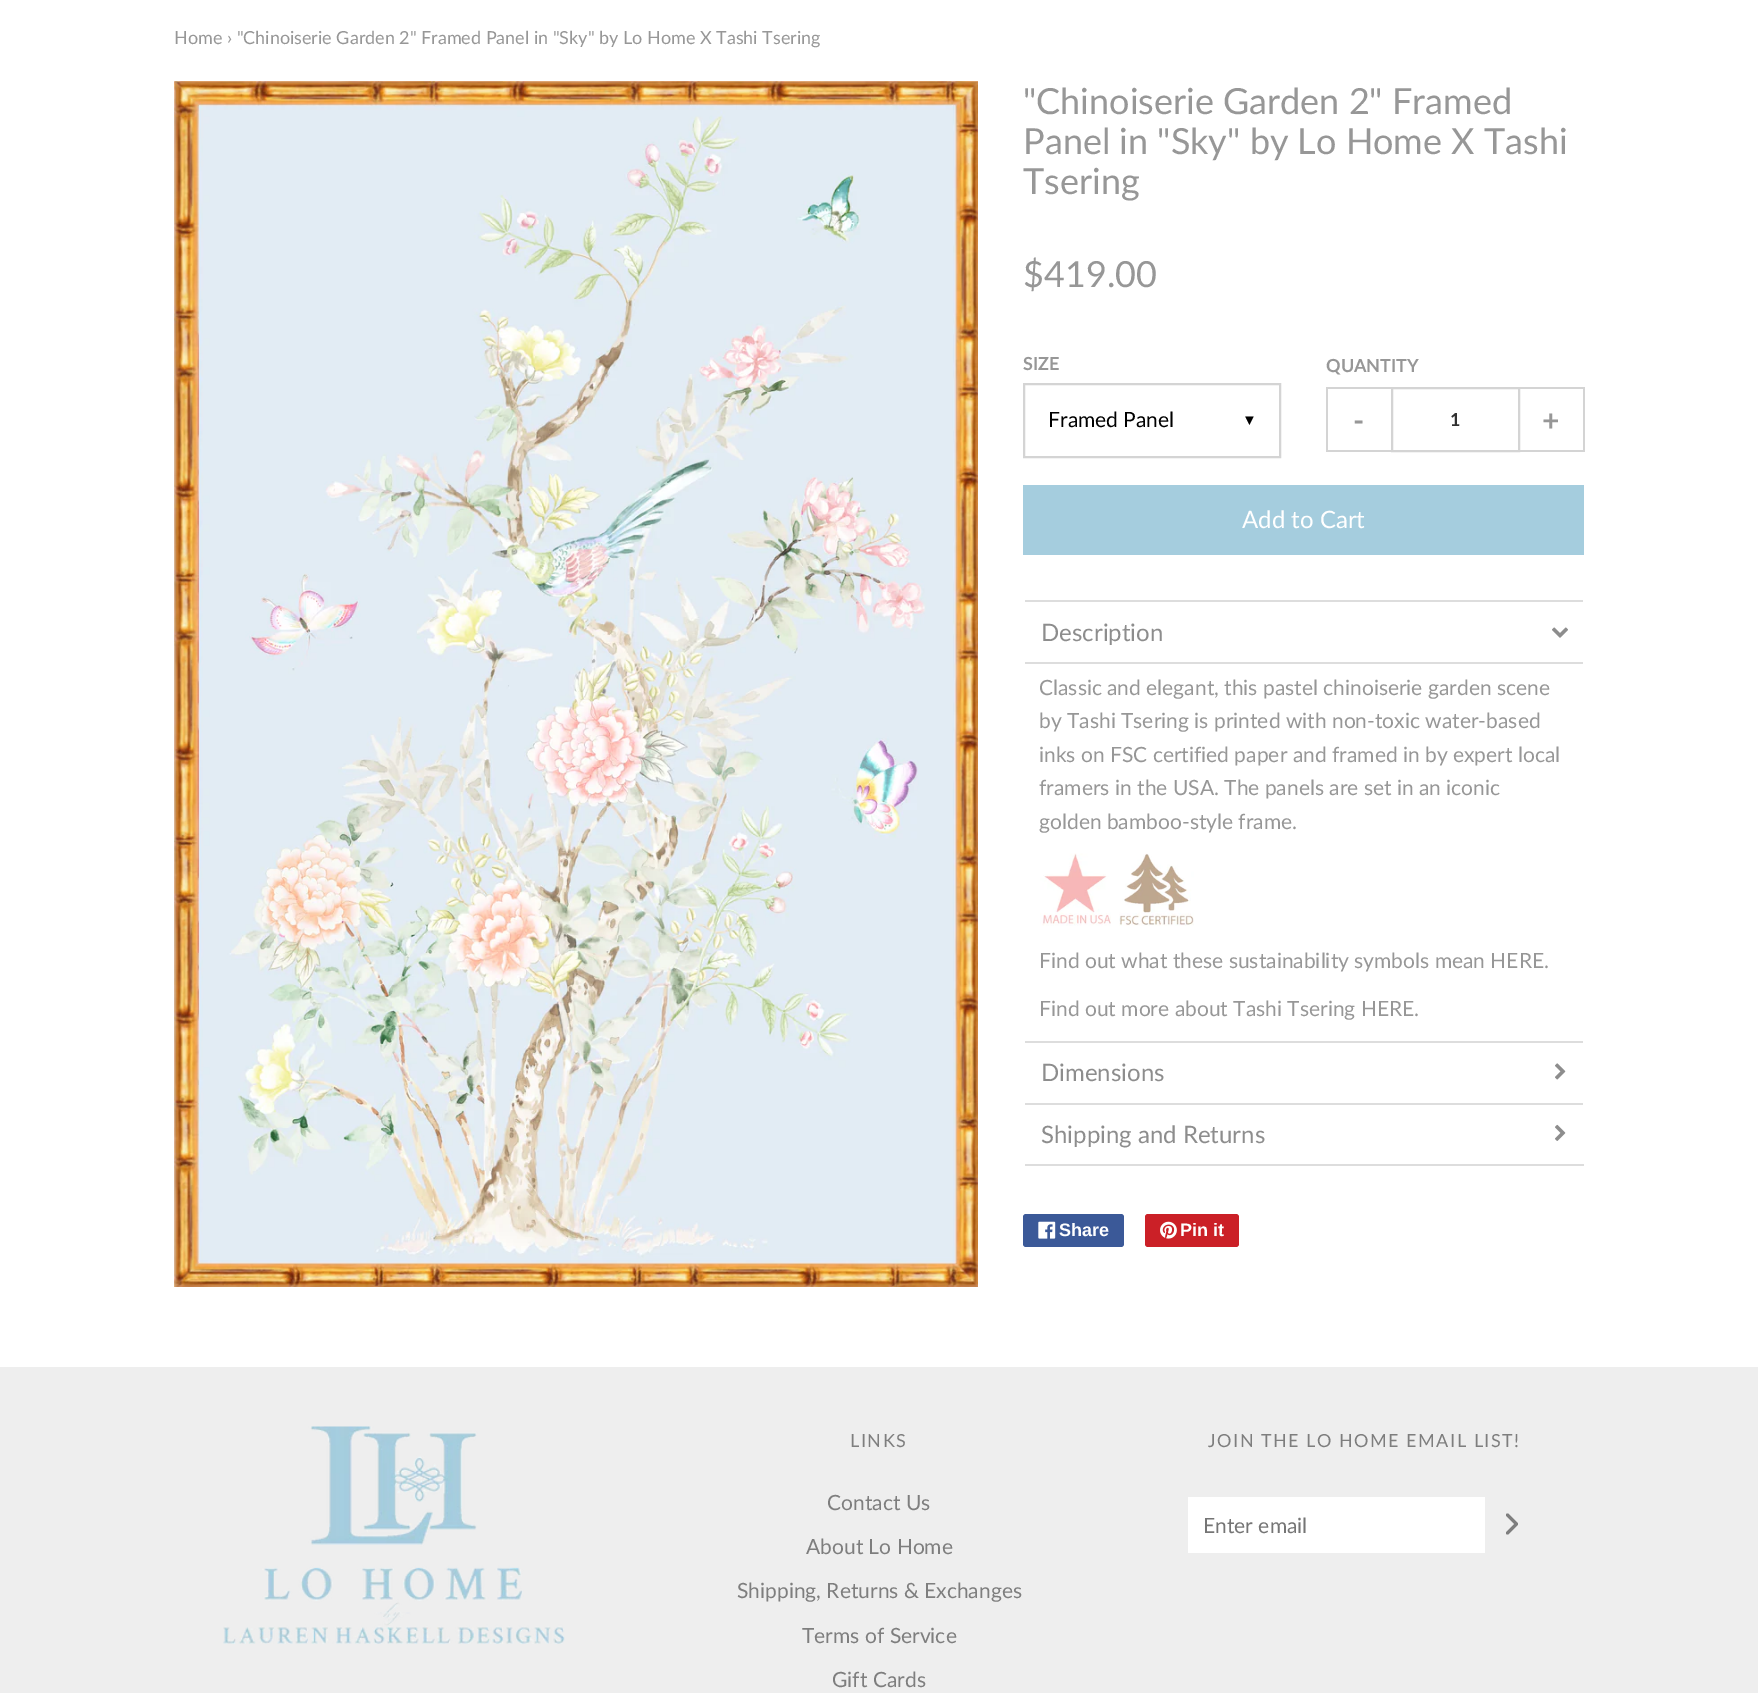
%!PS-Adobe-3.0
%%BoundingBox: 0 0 1759 1693
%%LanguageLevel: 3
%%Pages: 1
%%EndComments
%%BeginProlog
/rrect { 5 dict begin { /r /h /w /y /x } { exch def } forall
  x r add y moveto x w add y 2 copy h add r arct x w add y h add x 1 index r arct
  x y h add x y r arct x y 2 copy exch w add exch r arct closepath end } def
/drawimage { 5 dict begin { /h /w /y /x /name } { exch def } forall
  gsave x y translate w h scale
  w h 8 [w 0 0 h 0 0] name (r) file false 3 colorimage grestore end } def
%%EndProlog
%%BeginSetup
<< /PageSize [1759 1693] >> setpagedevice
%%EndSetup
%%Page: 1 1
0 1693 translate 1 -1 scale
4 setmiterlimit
1 setgray
0 0 1759 1693 rectfill
(images/1.raw) 174 81 804 1206 drawimage
0.831 setgray
2 setlinewidth
1024 384 256 73 rectstroke
1326 387 65 2 rectfill
1326 450 65 2 rectfill
1326 387 2 65 rectfill
1392 388 127 63 rectstroke
1520 387 64 2 rectfill
1583 387 2 65 rectfill
1520 450 64 2 rectfill
0.647 0.804 0.871 setrgbcolor
1023 485 561 70 rectfill
0.867 setgray
1023 600 561 2 rectfill
1 setgray
1583 600 1 2 rectfill
1023 600 2 2 rectfill
(images/2.raw) 1552 627 16 11 drawimage
0.867 setgray
1023 662 561 2 rectfill
1 setgray
1583 662 1 2 rectfill
1023 662 2 2 rectfill
(images/3.raw) 1040 853 71 73 drawimage
(images/4.raw) 1119 853 75 73 drawimage
0.867 setgray
1023 1041 561 2 rectfill
1 setgray
1583 1041 1 2 rectfill
1023 1041 2 2 rectfill
(images/5.raw) 1555 1063 11 17 drawimage
0.867 setgray
1023 1103 561 2 rectfill
1 setgray
1583 1103 1 2 rectfill
0.867 setgray
1023 1164 561 2 rectfill
1 setgray
1023 1103 2 63 rectfill
(images/6.raw) 1555 1124 11 17 drawimage
0.231 0.349 0.596 setrgbcolor
1023 1214 101 33 3 rrect fill
(images/7.raw) 1038 1221 18 18 drawimage
0.796 0.125 0.153 setrgbcolor
1145 1214 94 33 3 rrect fill
(images/8.raw) 1160 1221 17 18 drawimage
0.933 setgray
0 1367 1758 326 rectfill
(images/9.raw) 223 1426 342 218 drawimage
1 setgray
1188 1497 297 56 rectfill
0.494 setgray
3 setlinewidth
1 setlinecap
1 setlinejoin
newpath 1507.5 1533 moveto 1516.5 1524 lineto 1507.5 1515 lineto stroke
/Lato-Regular [18 0 0 -18 0 0] selectfont
0.592 setgray
174 44 moveto (Home › "Chinoiserie Garden 2" Framed Panel in "Sky" by Lo Home X Tashi Tsering) show
/Lato-Regular [36 0 0 -36 0 0] selectfont
1023 114 moveto ("Chinoiserie Garden 2" Framed) show
1023 154 moveto (Panel in "Sky" by Lo Home X Tashi) show
1023 194 moveto (Tsering) show
1023 287 moveto ($419.00) show
/Lato-Bold [18 0 0 -18 0 0] selectfont
1023 370 moveto (SIZE) show
/Lato-Regular [21 0 0 -21 0 0] selectfont
0 setgray
1048 427 moveto (Framed Panel) show
/LiberationSans-Regular [15 0 0 -15 0 0] selectfont
1242 425 moveto (▼) show
/Lato-Bold [18 0 0 -18 0 0] selectfont
0.592 setgray
1326 372 moveto (QUANTITY) show
/Lato-Bold [30 0 0 -30 0 0] selectfont
1353 431 moveto (-) show
/Lato-Bold [18 0 0 -18 0 0] selectfont
0.192 setgray
1450 426 moveto (1) show
/Lato-Bold [30 0 0 -30 0 0] selectfont
0.592 setgray
1542 431 moveto (+) show
/Lato-Regular [24 0 0 -24 0 0] selectfont
1 setgray
1242 528 moveto (Add to Cart) show
0.553 setgray
1041 641 moveto (Description) show
/Lato-Regular [21 0 0 -21 0 0] selectfont
0.592 setgray
1039 695 moveto (Classic and elegant, this pastel chinoiserie garden scene) show
1039 728 moveto (by Tashi Tsering is printed with non-toxic water-based) show
1039 762 moveto (inks on FSC certified paper and framed in by expert local) show
1039 795 moveto (framers in the USA. The panels are set in an iconic) show
1039 829 moveto (golden bamboo-style frame.) show
1039 968 moveto (Find out what these sustainability symbols mean HERE.) show
1039 1016 moveto (Find out more about Tashi Tsering HERE.) show
/Lato-Regular [24 0 0 -24 0 0] selectfont
0.553 setgray
1041 1081 moveto (Dimensions) show
1041 1143 moveto (Shipping and Returns) show
/LiberationSans-Bold [18 0 0 -18 0 0] selectfont
1 setgray
1059 1236 moveto (Share) show
1180 1236 moveto (Pin it) show
/Lato-Regular [18 0 0 -18 0 0] selectfont
0.494 setgray
850 1447 moveto 1.5 0 (LINKS) ashow
/Lato-Regular [21 0 0 -21 0 0] selectfont
827 1510 moveto (Contact Us) show
806 1554 moveto (About Lo Home) show
737 1598 moveto (Shipping, Returns & Exchanges) show
802 1643 moveto (Terms of Service) show
832 1687 moveto (Gift Cards) show
/Lato-Regular [18 0 0 -18 0 0] selectfont
1208 1447 moveto 1.5 0 (JOIN THE LO HOME EMAIL LIST!) ashow
/Lato-Regular [21 0 0 -21 0 0] selectfont
0.459 setgray
1203 1533 moveto (Enter email) show
showpage
%%EOF
